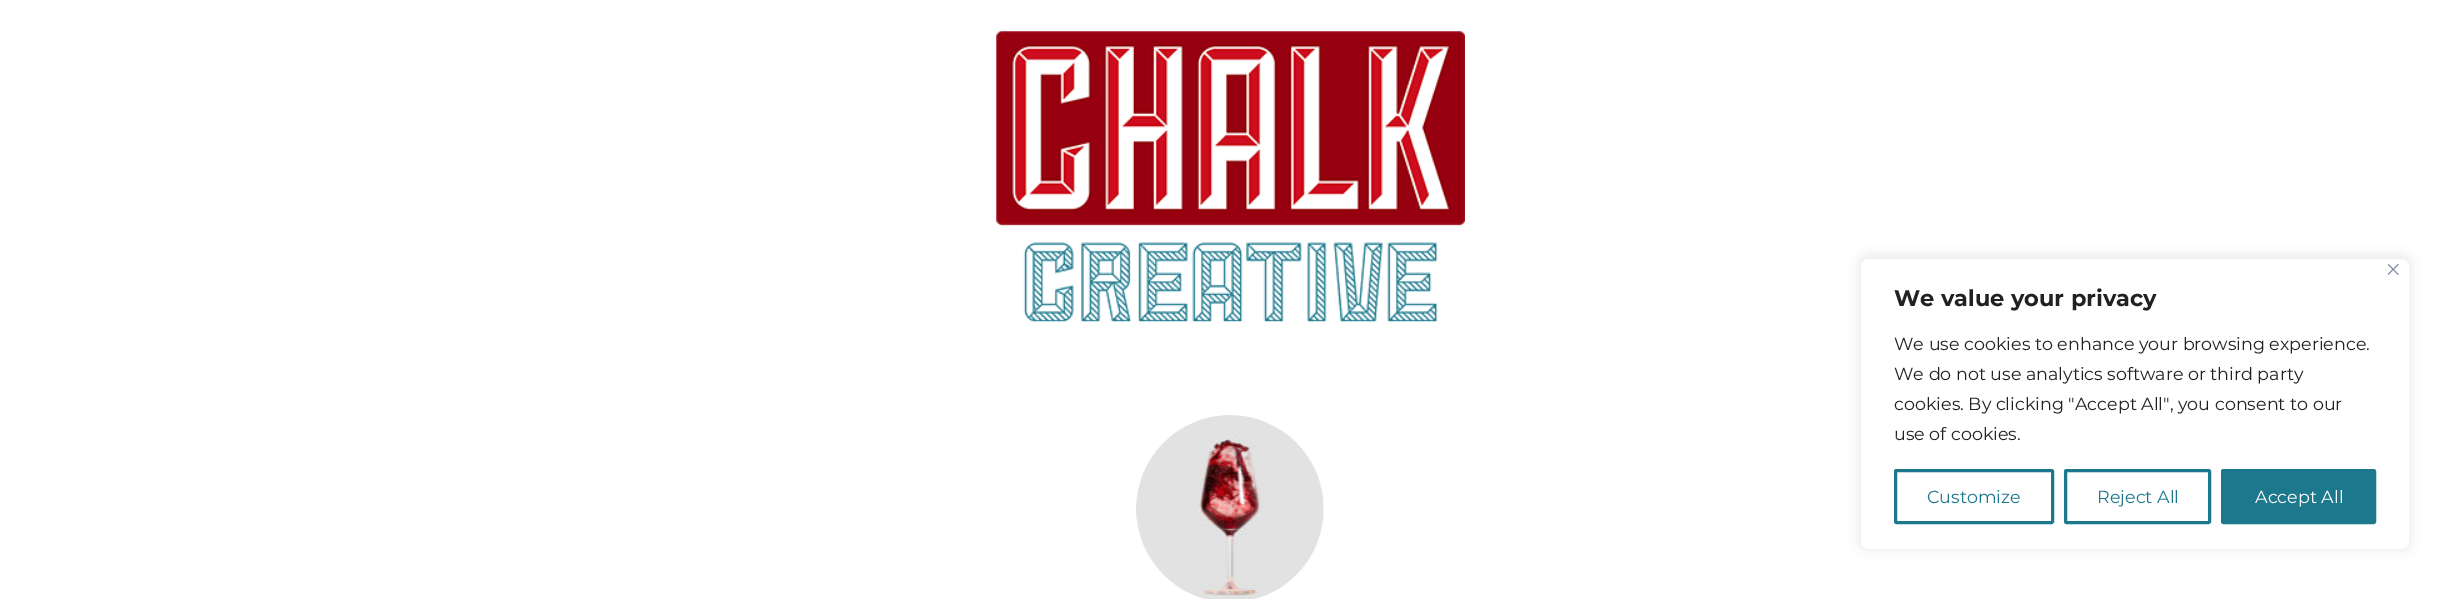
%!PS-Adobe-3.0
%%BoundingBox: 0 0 2459 599
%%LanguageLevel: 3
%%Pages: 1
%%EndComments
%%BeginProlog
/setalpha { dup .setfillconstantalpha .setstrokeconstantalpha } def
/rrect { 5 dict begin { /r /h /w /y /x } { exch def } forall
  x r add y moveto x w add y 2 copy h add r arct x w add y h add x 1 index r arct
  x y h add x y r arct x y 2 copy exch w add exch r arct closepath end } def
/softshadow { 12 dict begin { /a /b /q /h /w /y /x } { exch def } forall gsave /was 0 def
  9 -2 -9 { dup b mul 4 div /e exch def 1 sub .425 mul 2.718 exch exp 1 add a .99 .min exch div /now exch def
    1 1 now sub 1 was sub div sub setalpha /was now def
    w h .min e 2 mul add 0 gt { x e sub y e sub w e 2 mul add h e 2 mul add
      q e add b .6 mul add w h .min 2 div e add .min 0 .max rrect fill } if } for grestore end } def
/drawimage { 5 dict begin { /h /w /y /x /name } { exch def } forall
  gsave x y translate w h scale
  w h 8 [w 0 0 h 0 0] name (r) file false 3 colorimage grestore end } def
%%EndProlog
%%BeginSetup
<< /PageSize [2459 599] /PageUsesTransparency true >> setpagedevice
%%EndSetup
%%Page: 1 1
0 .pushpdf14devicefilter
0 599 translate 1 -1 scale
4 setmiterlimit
1 setgray
0 0 2459 599 rectfill
(images/1.raw) 996 31 469 291 drawimage
(images/2.raw) 1136 415 188 184 drawimage
gsave
newpath 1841 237 moveto 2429 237 lineto 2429 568 lineto 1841 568 lineto closepath 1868 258 moveto 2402 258 lineto 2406.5 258 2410 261.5 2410 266 curveto 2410 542 lineto 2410 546.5 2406.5 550 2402 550 curveto 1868 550 lineto 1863.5 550 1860 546.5 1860 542 curveto 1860 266 lineto 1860 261.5 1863.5 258 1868 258 curveto closepath eoclip newpath
0.675 0.671 0.671 setrgbcolor
1860 256 550 293 8 6 0.3 softshadow
grestore
0.957 setgray
1860.5 258.5 549 291 7.5 rrect stroke
(images/3.raw) 2388 264 11 11 drawimage
0.11 0.475 0.553 setrgbcolor
3 setlinewidth
1895.5 470.5 157 52 1 rrect stroke
2065.5 470.5 144 52 1 rrect stroke
2222.5 470.5 152 52 1 rrect gsave fill grestore
stroke
/Montserrat-Bold [22.5 0 0 -22.5 0 0] selectfont
0.129 setgray
1894 306 moveto (We value your privacy) show
/Montserrat-Regular [17.5 0 0 -17.5 0 0] selectfont
1894 350 moveto (We use cookies to enhance your browsing experience.) show
1894 380 moveto (We do not use analytics software or third party) show
1894 410 moveto (cookies. By clicking "Accept All", you consent to our) show
1894 440 moveto (use of cookies.) show
0.11 0.475 0.553 setrgbcolor
1927 503 moveto (Customize) show
2097 503 moveto (Reject All) show
1 setgray
2255 503 moveto (Accept All) show
.poppdf14devicefilter showpage
%%EOF
